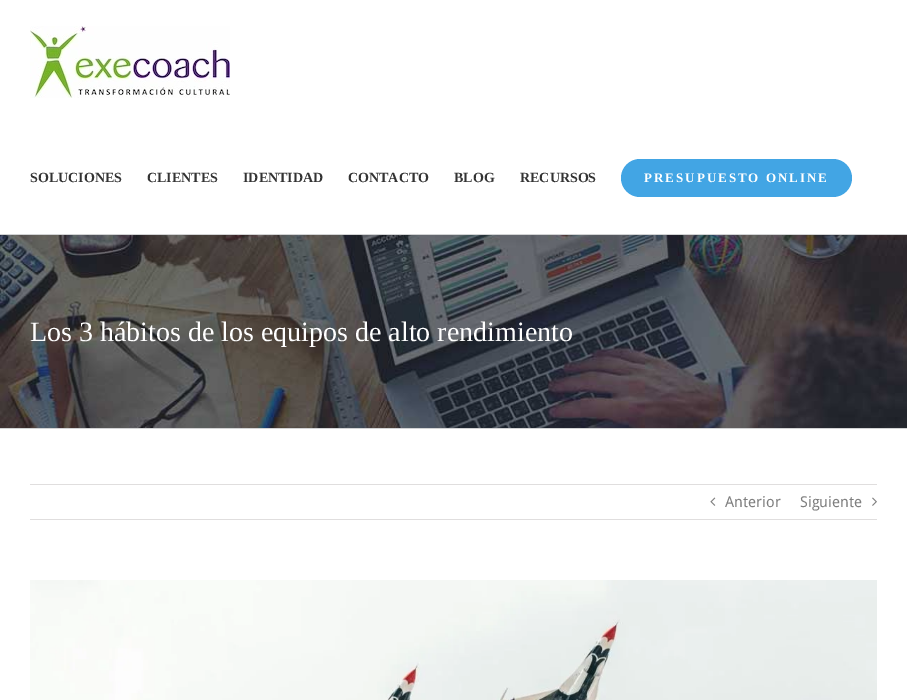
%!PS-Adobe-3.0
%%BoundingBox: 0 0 907 700
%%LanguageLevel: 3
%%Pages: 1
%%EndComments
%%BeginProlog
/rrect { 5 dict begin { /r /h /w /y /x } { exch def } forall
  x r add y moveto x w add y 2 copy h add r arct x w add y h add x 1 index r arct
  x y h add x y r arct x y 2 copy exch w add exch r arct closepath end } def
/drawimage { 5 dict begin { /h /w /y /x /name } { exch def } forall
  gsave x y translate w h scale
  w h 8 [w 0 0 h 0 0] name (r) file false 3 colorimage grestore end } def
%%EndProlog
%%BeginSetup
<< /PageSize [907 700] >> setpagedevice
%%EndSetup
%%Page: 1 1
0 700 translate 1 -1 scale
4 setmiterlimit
1 setgray
0 0 907 700 rectfill
(images/1.raw) 30 26 200 72 drawimage
0.259 0.647 0.894 setrgbcolor
621 159 231 38 19 rrect fill
(images/2.raw) 0 235 907 193 drawimage
0.824 0.827 0.831 setrgbcolor
0 234 907 1 rectfill
0 428 907 1 rectfill
0.878 0.871 0.871 setrgbcolor
30 484 847 1 rectfill
30 519 847 1 rectfill
(images/3.raw) 710 497 6 9 drawimage
(images/4.raw) 872 497 5 9 drawimage
(images/5.raw) 30 580 847 120 drawimage
/LiberationSerif-Bold [14 0 0 -14 0 0] selectfont
0.2 setgray
30 182 moveto (SOLUCIONES) show
147 182 moveto (CLIENTES) show
243 182 moveto (IDENTIDAD) show
348 182 moveto (CONTACTO) show
454 182 moveto (BLOG) show
520 182 moveto (RECURSOS) show
/LiberationSerif-Bold [13 0 0 -13 0 0] selectfont
1 setgray
644 182 moveto 2 0 (PRESUPUESTO ONLINE) ashow
/LiberationSerif-Regular [28 0 0 -28 0 0] selectfont
30 341 moveto (Los 3 hábitos de los equipos de alto rendimiento) show
/DroidSans-Regular [15 0 0 -15 0 0] selectfont
0.498 setgray
725 507 moveto (Anterior) show
800 507 moveto (Siguiente) show
showpage
%%EOF
